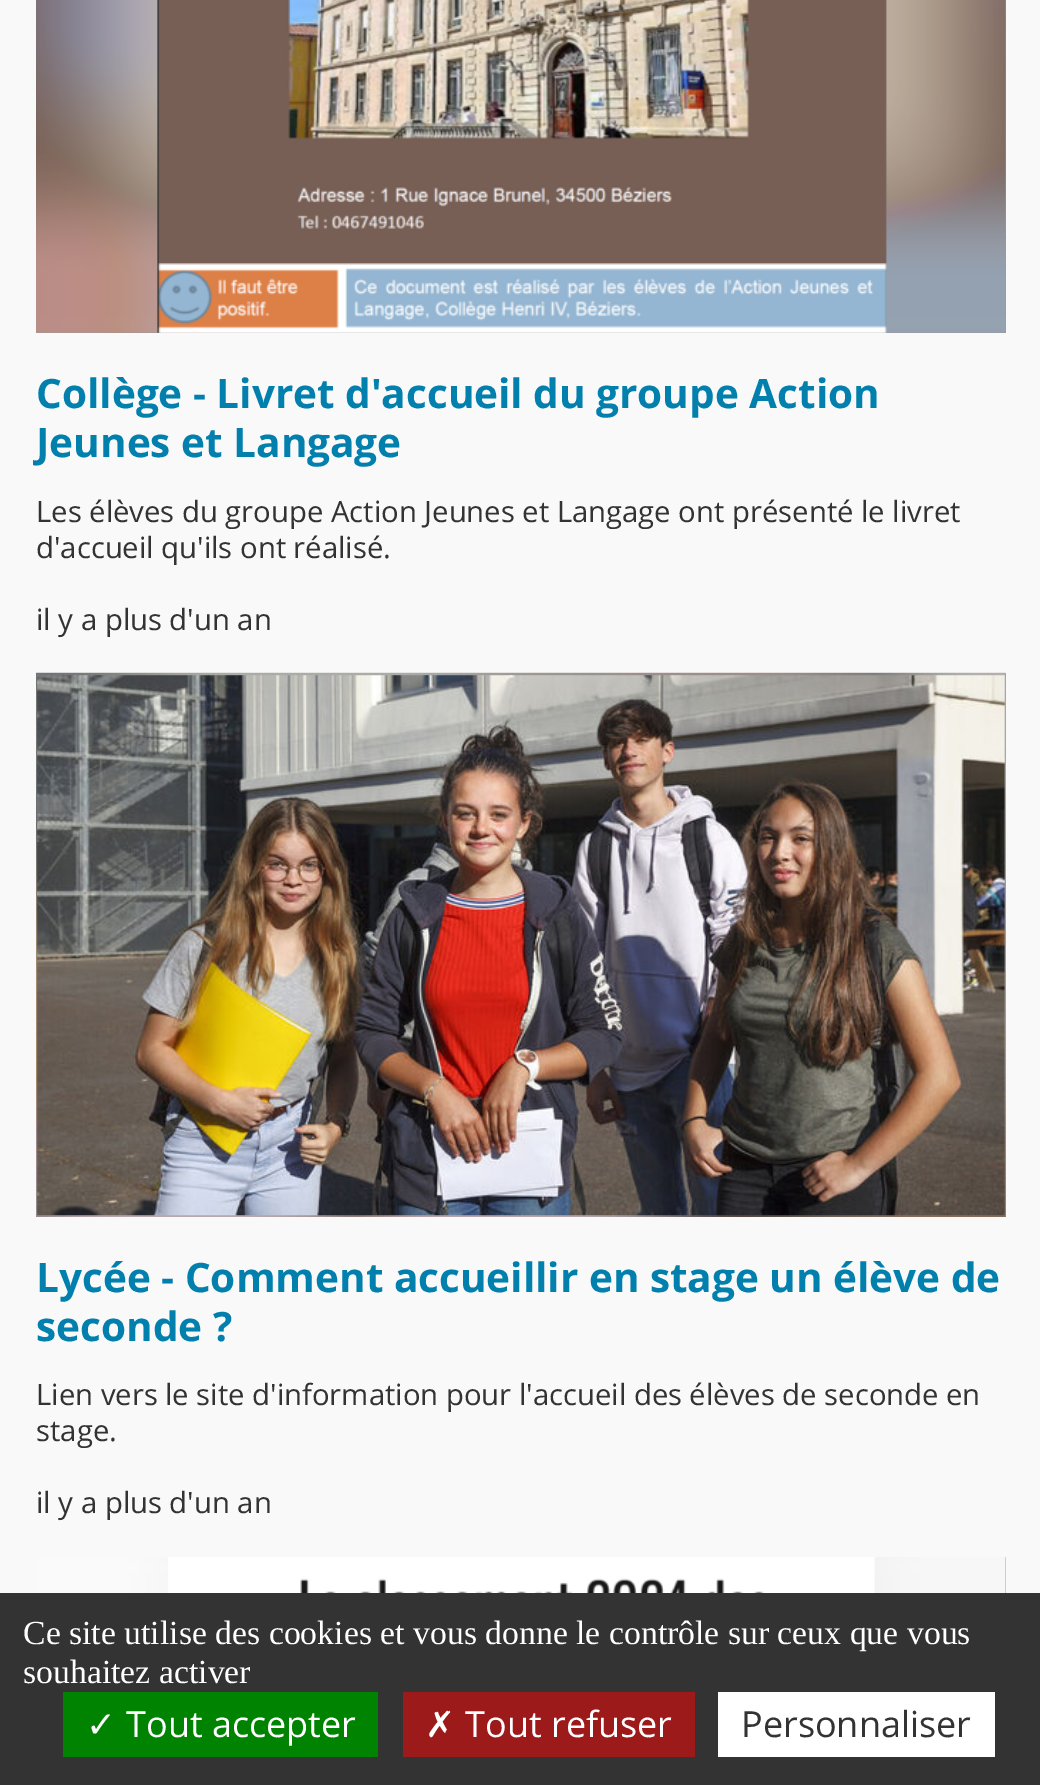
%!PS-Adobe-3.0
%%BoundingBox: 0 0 1040 1785
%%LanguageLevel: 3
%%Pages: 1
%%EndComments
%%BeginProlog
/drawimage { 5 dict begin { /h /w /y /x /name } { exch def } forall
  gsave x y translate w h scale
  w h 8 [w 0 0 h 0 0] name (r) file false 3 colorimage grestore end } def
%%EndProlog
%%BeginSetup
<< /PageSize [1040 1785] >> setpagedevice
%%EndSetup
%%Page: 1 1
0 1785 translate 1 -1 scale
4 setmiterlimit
0.976 setgray
0 0 1040 1785 rectfill
0.6 setgray
36 0 970 333 rectfill
(images/1.raw) 36 0 970 333 drawimage
(images/2.raw) 157 0 730 333 drawimage
36 673 970 544 rectfill
(images/3.raw) 36 672 970 545 drawimage
(images/4.raw) 37 675 968 541 drawimage
36 1557 970 36 rectfill
(images/5.raw) 36 1557 970 36 drawimage
(images/6.raw) 168 1557 707 36 drawimage
0.2 setgray
0 1593 1040 192 rectfill
0 0.514 0 setrgbcolor
63 1692 315 65 rectfill
0.612 0.102 0.102 setrgbcolor
403 1692 292 65 rectfill
1 setgray
718 1692 277 65 rectfill
/OpenSans-Bold [40.5 0 0 -40.5 0 0] selectfont
0.004 0.498 0.678 setrgbcolor
36 408 moveto (Collège - Livret d'accueil du groupe Action) show
36 457 moveto (Jeunes et Langage) show
/OpenSans-Regular [29.25 0 0 -29.25 0 0] selectfont
0.2 setgray
36 522 moveto (Les élèves du groupe Action Jeunes et Langage ont présenté le livret) show
36 558 moveto (d'accueil qu'ils ont réalisé.) show
36 630 moveto (il y a plus d'un an) show
/OpenSans-Bold [40.5 0 0 -40.5 0 0] selectfont
0.004 0.498 0.678 setrgbcolor
36 1292 moveto (Lycée - Comment accueillir en stage un élève de) show
36 1341 moveto (seconde ?) show
/OpenSans-Regular [29.25 0 0 -29.25 0 0] selectfont
0.2 setgray
36 1405 moveto (Lien vers le site d'information pour l'accueil des élèves de seconde en) show
36 1441 moveto (stage.) show
36 1513 moveto (il y a plus d'un an) show
/LiberationSerif-Regular [33.75 0 0 -33.75 0 0] selectfont
1 setgray
23 1644 moveto (Ce site utilise des cookies et vous donne le contrôle sur ceux que vous) show
23 1683 moveto (souhaitez activer) show
/DejaVuSans-Regular [36 0 0 -36 0 0] selectfont
86 1737 moveto (✓) show
/OpenSans-Regular [36 0 0 -36 0 0] selectfont
126 1737 moveto (Tout accepter) show
/DejaVuSans-Regular [36 0 0 -36 0 0] selectfont
425 1737 moveto (✗) show
/OpenSans-Regular [36 0 0 -36 0 0] selectfont
465 1737 moveto (Tout refuser) show
0.2 setgray
741 1737 moveto (Personnaliser) show
showpage
%%EOF
